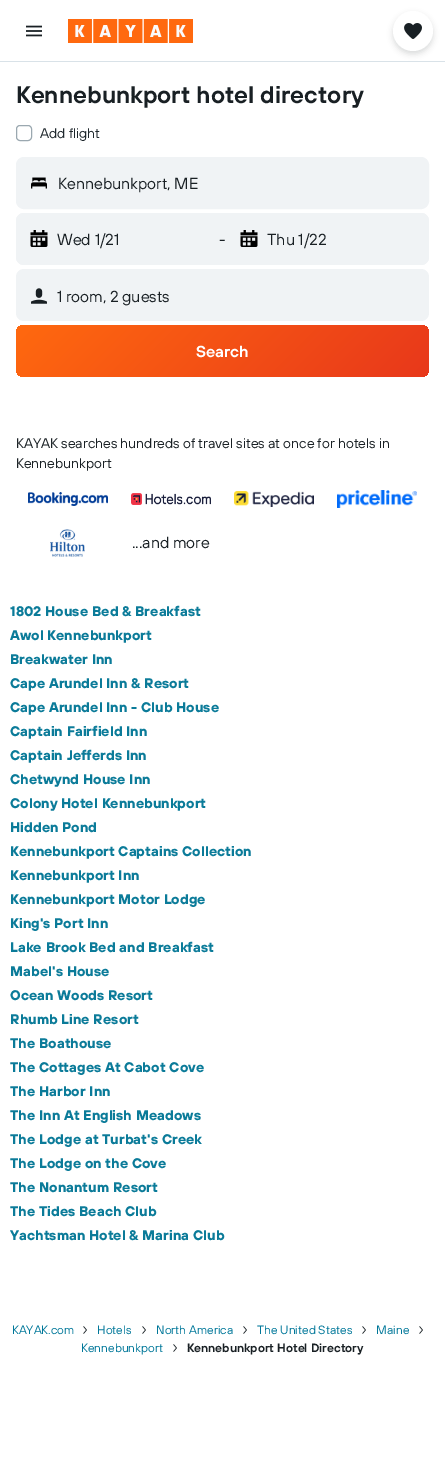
%!PS-Adobe-3.0
%%BoundingBox: 0 0 445 1462
%%LanguageLevel: 3
%%Pages: 1
%%EndComments
%%BeginProlog
/setalpha { dup .setfillconstantalpha .setstrokeconstantalpha } def
/rrect { 5 dict begin { /r /h /w /y /x } { exch def } forall
  x r add y moveto x w add y 2 copy h add r arct x w add y h add x 1 index r arct
  x y h add x y r arct x y 2 copy exch w add exch r arct closepath end } def
/softshadow { 12 dict begin { /a /b /q /h /w /y /x } { exch def } forall gsave /was 0 def
  9 -2 -9 { dup b mul 4 div /e exch def 1 sub .425 mul 2.718 exch exp 1 add a .99 .min exch div /now exch def
    1 1 now sub 1 was sub div sub setalpha /was now def
    w h .min e 2 mul add 0 gt { x e sub y e sub w e 2 mul add h e 2 mul add
      q e add b .6 mul add w h .min 2 div e add .min 0 .max rrect fill } if } for grestore end } def
/drawimage { 5 dict begin { /h /w /y /x /name } { exch def } forall
  gsave x y translate w h scale
  w h 8 [w 0 0 h 0 0] name (r) file false 3 colorimage grestore end } def
%%EndProlog
%%BeginSetup
<< /PageSize [445 1462] /PageUsesTransparency true >> setpagedevice
%%EndSetup
%%Page: 1 1
0 .pushpdf14devicefilter
0 1462 translate 1 -1 scale
4 setmiterlimit
1 setgray
0 0 445 1462 rectfill
0.851 0.886 0.91 setrgbcolor
0 61 445 1 rectfill
(images/1.raw) 26 25 16 12 drawimage
(images/2.raw) 68 19 125 24 drawimage
0.098 0.125 0.141 setrgbcolor
393 14 40 40 20 3 0.16 softshadow
1 setgray
newpath 413 31 20 0 360 arc closepath fill
(images/3.raw) 404 23 18 16 drawimage
0.608 0.659 0.69 setrgbcolor
16.5 125.5 15 15 3.5 rrect stroke
0.941 0.953 0.961 setrgbcolor
16.5 157.5 412 51 7.5 rrect gsave fill grestore
stroke
(images/4.raw) 31 177 16 12 drawimage
16 213 413 52 8 rrect fill
16 213 203 52 8 rrect fill
(images/5.raw) 30 230 18 17 drawimage
226 213 203 52 8 rrect fill
(images/5.raw) 240 230 18 17 drawimage
16 269 413 52 8 rrect fill
(images/6.raw) 31 288 16 16 drawimage
gsave 16 325 413 52 8 rrect clip newpath
<< /ShadingType 2 /ColorSpace /DeviceRGB /Coords [106 235 339 467] /Extend [true true] /Function << /FunctionType 2 /Domain [0 1] /C0 [1 0.412 0.059] /C1 [0.91 0.22 0.106] /N 1 >> >> shfill grestore
(images/7.raw) 28 492 80 14 drawimage
(images/8.raw) 131 493 80 12 drawimage
(images/9.raw) 234 491 80 16 drawimage
(images/10.raw) 337 490 80 18 drawimage
(images/11.raw) 50 529 35 28 drawimage
(images/12.raw) 83 1326 4 8 drawimage
(images/12.raw) 142 1326 4 8 drawimage
(images/12.raw) 243 1326 4 8 drawimage
(images/12.raw) 362 1326 4 8 drawimage
(images/12.raw) 419 1326 4 8 drawimage
(images/12.raw) 173 1344 4 8 drawimage
/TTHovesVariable-SemiBold [24 0 0 -24 0 0] selectfont
0.098 0.125 0.141 setrgbcolor
16 103 moveto (Kennebunkport hotel directory) show
/TTHovesVariable-Regular [14 0 0 -14 0 0] selectfont
0.122 0.157 0.176 setrgbcolor
40 138 moveto (Add flight) show
/TTHovesVariable-Regular [16 0 0 -16 0 0] selectfont
0.098 0.125 0.141 setrgbcolor
58 189 moveto (Kennebunkport, ME) show
57 245 moveto (Wed 1/21) show
219 245 moveto (-) show
267 245 moveto (Thu 1/22) show
57 302 moveto (1 room, 2 guests) show
/TTHovesVariable-SemiBold [16 0 0 -16 0 0] selectfont
1 setgray
196 357 moveto (Search) show
/TTHovesVariable-Regular [14 0 0 -14 0 0] selectfont
0.098 0.125 0.141 setrgbcolor
16 448 moveto (KAYAK searches hundreds of travel sites at once for hotels in) show
16 468 moveto (Kennebunkport) show
/TTHovesVariable-Regular [16 0 0 -16 0 0] selectfont
132 548 moveto (...and more) show
/TTHovesVariable-Bold [14 0 0 -14 0 0] selectfont
0.043 0.482 0.6 setrgbcolor
10 616 moveto (1802 House Bed & Breakfast) show
10 640 moveto (Awol Kennebunkport) show
10 664 moveto (Breakwater Inn) show
10 688 moveto (Cape Arundel Inn & Resort) show
10 712 moveto (Cape Arundel Inn - Club House) show
10 736 moveto (Captain Fairfield Inn) show
10 760 moveto (Captain Jefferds Inn) show
10 784 moveto (Chetwynd House Inn) show
10 808 moveto (Colony Hotel Kennebunkport) show
10 832 moveto (Hidden Pond) show
10 856 moveto (Kennebunkport Captains Collection) show
10 880 moveto (Kennebunkport Inn) show
10 904 moveto (Kennebunkport Motor Lodge) show
10 928 moveto (King's Port Inn) show
10 952 moveto (Lake Brook Bed and Breakfast) show
10 976 moveto (Mabel's House) show
10 1000 moveto (Ocean Woods Resort) show
10 1024 moveto (Rhumb Line Resort) show
10 1048 moveto (The Boathouse) show
10 1072 moveto (The Cottages At Cabot Cove) show
10 1096 moveto (The Harbor Inn) show
10 1120 moveto (The Inn At English Meadows) show
10 1144 moveto (The Lodge at Turbat's Creek) show
10 1168 moveto (The Lodge on the Cove) show
10 1192 moveto (The Nonantum Resort) show
10 1216 moveto (The Tides Beach Club) show
10 1240 moveto (Yachtsman Hotel & Marina Club) show
/TTHovesVariable-Regular [12 0 0 -12 0 0] selectfont
0 0.467 0.6 setrgbcolor
12 1334 moveto (KAYAK.com) show
97 1334 moveto (Hotels) show
156 1334 moveto (North America) show
257 1334 moveto (The United States) show
376 1334 moveto (Maine) show
81 1352 moveto (Kennebunkport) show
/TTHovesVariable-SemiBold [12 0 0 -12 0 0] selectfont
0.098 0.125 0.141 setrgbcolor
187 1352 moveto (Kennebunkport Hotel Directory) show
.poppdf14devicefilter showpage
%%EOF
